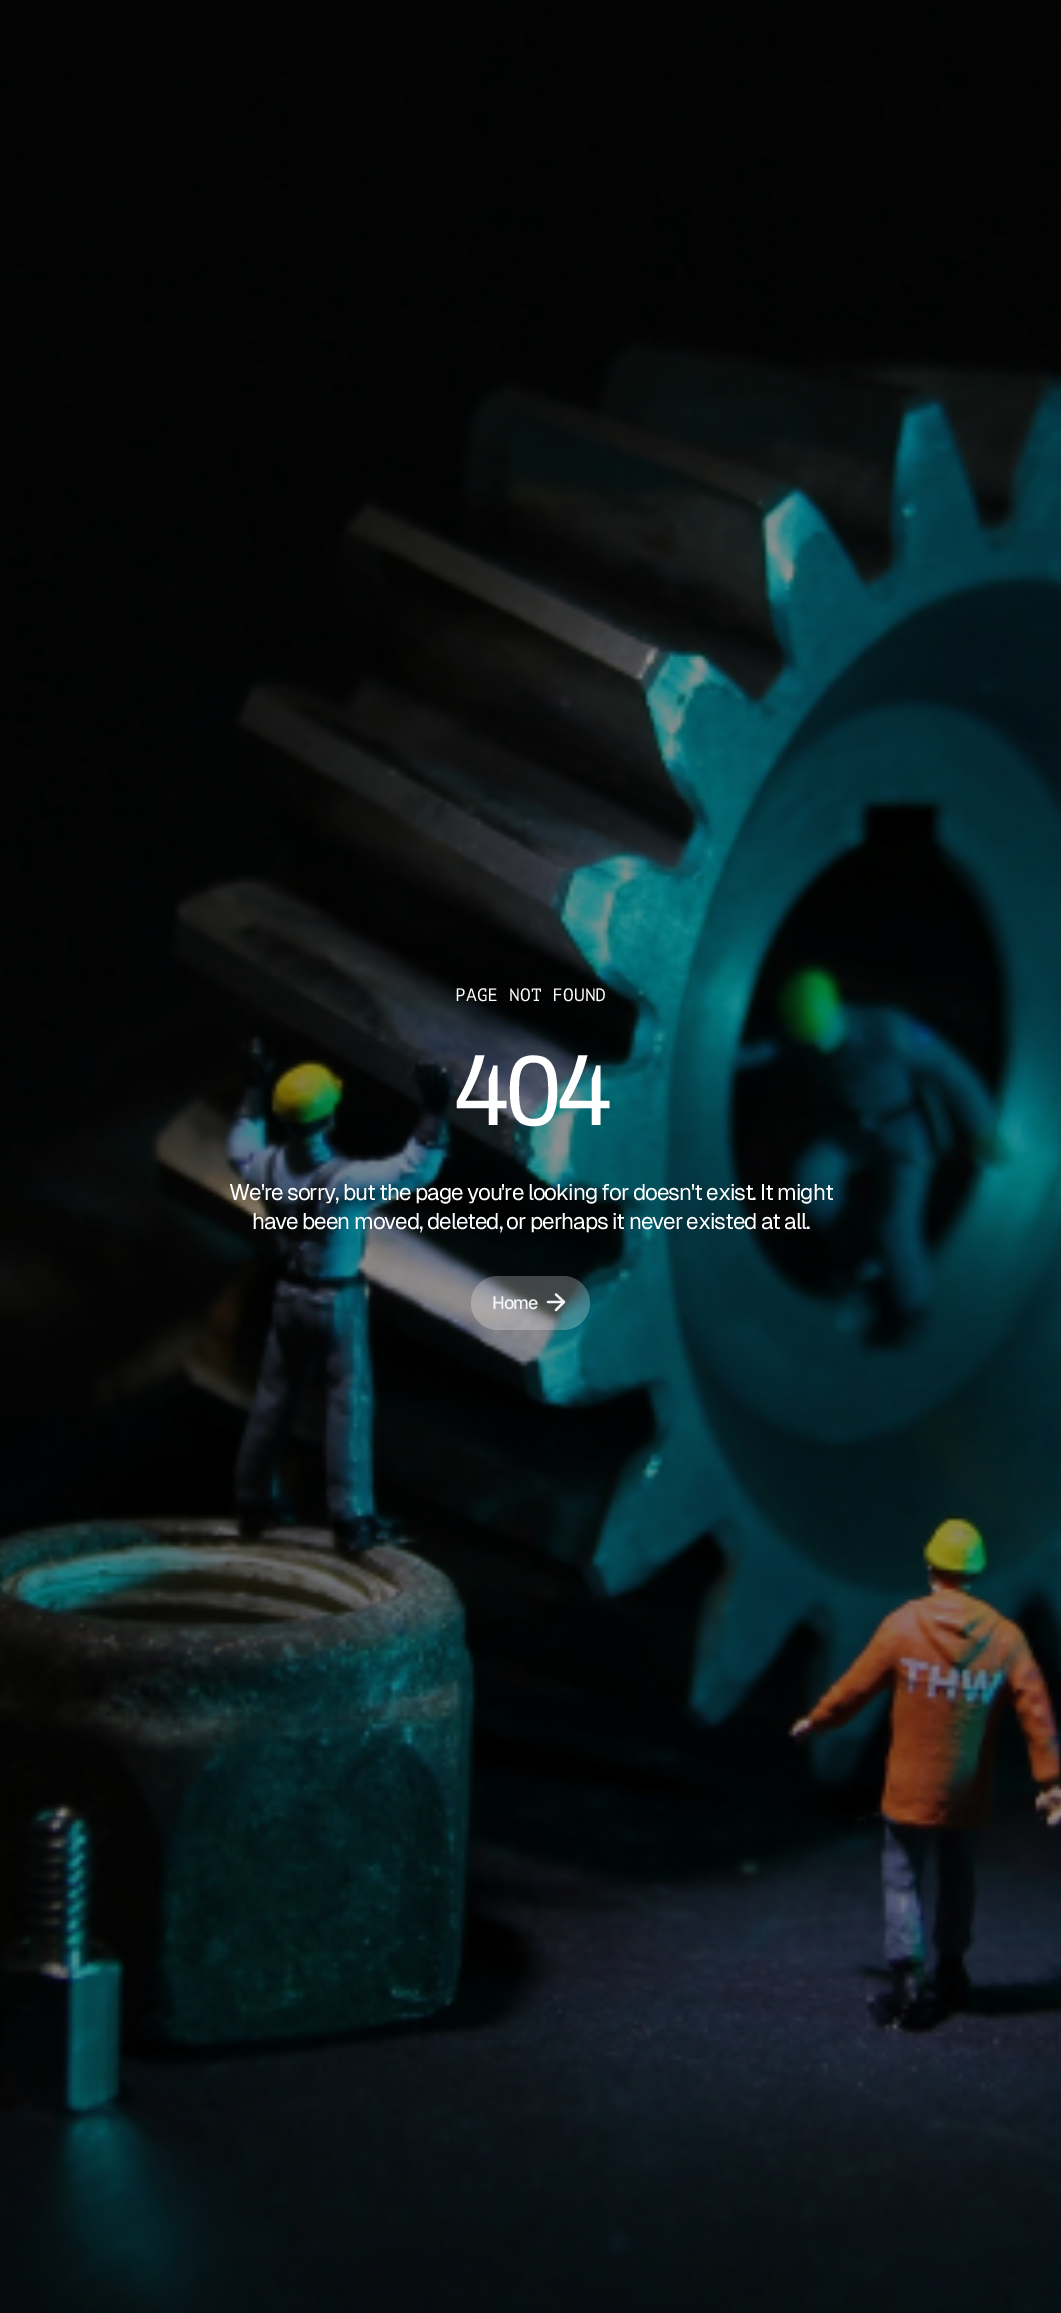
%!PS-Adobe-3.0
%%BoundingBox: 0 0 1061 2313
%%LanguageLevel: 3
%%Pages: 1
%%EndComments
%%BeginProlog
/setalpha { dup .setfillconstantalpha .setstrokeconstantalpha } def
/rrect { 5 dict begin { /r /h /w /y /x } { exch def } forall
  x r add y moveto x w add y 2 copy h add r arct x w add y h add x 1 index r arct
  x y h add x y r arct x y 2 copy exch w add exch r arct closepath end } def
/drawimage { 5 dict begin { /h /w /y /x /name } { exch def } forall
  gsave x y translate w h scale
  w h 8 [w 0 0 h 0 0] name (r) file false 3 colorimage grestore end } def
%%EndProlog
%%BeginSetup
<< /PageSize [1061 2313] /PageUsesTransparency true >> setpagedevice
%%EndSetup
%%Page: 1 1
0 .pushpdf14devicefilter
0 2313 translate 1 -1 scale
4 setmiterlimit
1 setgray
0 0 1061 2313 rectfill
(images/1.raw) 0 0 1061 2313 drawimage
0.25 setalpha
0.992 setgray
471 1276 119 54 27 rrect fill
1 setalpha
0.941 0.957 0.969 setrgbcolor
2.2 setlinewidth
1 setlinecap
1 setlinejoin
newpath 548 1302 moveto 564 1302 lineto 556 1294.5 moveto 564 1302 lineto 556 1310 lineto stroke
/PTMono-Regular [18 0 0 -18 0 0] selectfont
1 setgray
455 1001 moveto (PAGE NOT FOUND) show
/Archivo-SemiBold [100 0 0 -100 0 0] selectfont
454 1125 moveto -5 0 (404) ashow
/Geist-Regular [22.5 0 0 -22.5 0 0] selectfont
229 1200 moveto -1.12 0 (We're sorry, but the page you're looking for doesn't exist. It might) ashow
252 1229 moveto -1.12 0 (have been moved, deleted, or perhaps it never existed at all.) ashow
/Geist-Medium [18 0 0 -18 0 0] selectfont
0.941 0.957 0.969 setrgbcolor
492 1309 moveto -1.12 0 (Home) ashow
.poppdf14devicefilter showpage
%%EOF
